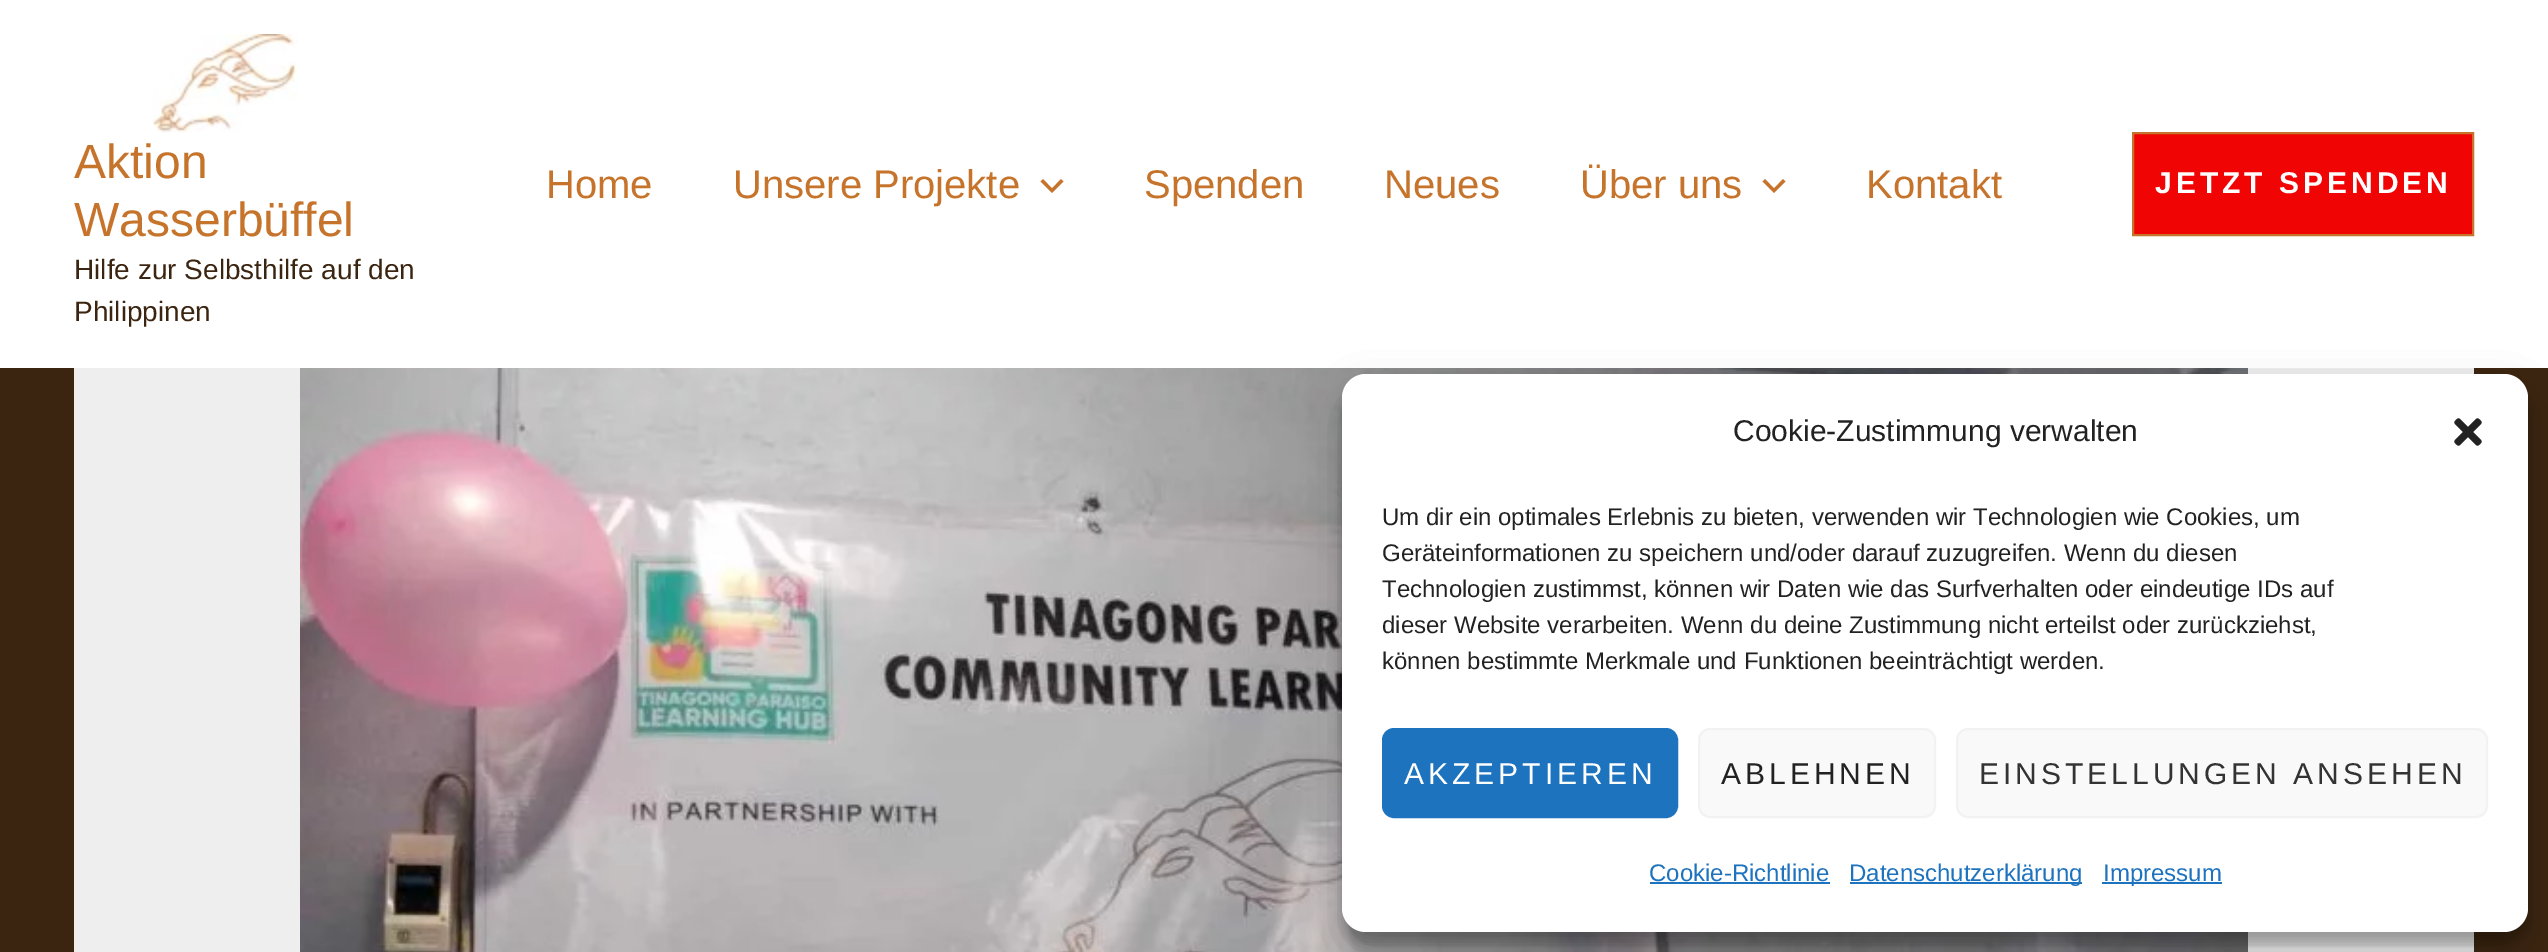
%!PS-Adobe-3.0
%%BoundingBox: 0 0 2548 952
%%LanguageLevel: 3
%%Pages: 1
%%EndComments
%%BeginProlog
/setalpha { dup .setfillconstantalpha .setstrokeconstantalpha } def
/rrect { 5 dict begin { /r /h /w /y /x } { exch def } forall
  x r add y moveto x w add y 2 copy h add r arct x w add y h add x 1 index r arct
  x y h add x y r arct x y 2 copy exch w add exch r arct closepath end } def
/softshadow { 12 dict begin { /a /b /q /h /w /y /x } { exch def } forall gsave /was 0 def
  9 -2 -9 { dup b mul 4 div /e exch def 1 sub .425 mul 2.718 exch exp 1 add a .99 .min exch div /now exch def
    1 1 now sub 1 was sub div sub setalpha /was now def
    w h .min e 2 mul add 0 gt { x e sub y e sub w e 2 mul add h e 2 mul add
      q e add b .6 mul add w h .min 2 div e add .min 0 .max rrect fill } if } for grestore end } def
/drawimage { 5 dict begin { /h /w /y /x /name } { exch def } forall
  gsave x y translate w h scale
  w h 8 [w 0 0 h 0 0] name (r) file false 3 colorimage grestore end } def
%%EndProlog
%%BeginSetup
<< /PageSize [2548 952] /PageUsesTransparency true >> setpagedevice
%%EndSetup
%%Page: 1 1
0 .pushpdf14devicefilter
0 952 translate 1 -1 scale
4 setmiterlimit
0.231 0.145 0.063 setrgbcolor
0 0 2548 952 rectfill
1 setgray
0 0 2548 368 rectfill
(images/1.raw) 152 34 146 99 drawimage
0.776 0.455 0.169 setrgbcolor
newpath 1040.5 181.5 moveto 1052 193 lineto 1063.5 181.5 lineto 1061 179 lineto 1052 188.5 lineto 1043 179 lineto closepath fill
newpath 1762.5 181.5 moveto 1774 193 lineto 1785.5 181.5 lineto 1783 179 lineto 1774 188.5 lineto 1765 179 lineto closepath fill
0.945 0.016 0.016 setrgbcolor
newpath 2133 133 moveto 2473 133 lineto 2473 235 lineto 2133 235 lineto closepath gsave fill grestore
0.776 0.455 0.169 setrgbcolor
2 setlinewidth
stroke
0.933 setgray
74 368 2400 584 rectfill
(images/2.raw) 300 368 1948 584 drawimage
0 setgray
1342 386 1186 558 24 6 0.23 softshadow
1342 394 1186 558 24 20 0.19 softshadow
1 setgray
1342 374 1186 558 24 rrect fill
(images/3.raw) 2454 418 28 28 drawimage
0.118 0.451 0.745 setrgbcolor
1383 729 294 88 11 rrect gsave fill grestore
stroke
0.976 setgray
1699 729 236 88 11 rrect gsave fill grestore
0.949 setgray
stroke
0.976 setgray
1957 729 530 88 11 rrect gsave fill grestore
0.949 setgray
stroke
0.118 0.451 0.745 setrgbcolor
1650 882 180 2 rectfill
1850 882 232 2 rectfill
2102 882 120 2 rectfill
/LiberationSans-Regular [48 0 0 -48 0 0] selectfont
0.776 0.455 0.169 setrgbcolor
74 178 moveto (Aktion) show
74 236 moveto (Wasserbüffel) show
/LiberationSans-Regular [28 0 0 -28 0 0] selectfont
0.231 0.145 0.063 setrgbcolor
74 279 moveto (Hilfe zur Selbsthilfe auf den) show
74 321 moveto (Philippinen) show
/LiberationSans-Regular [40 0 0 -40 0 0] selectfont
0.776 0.455 0.169 setrgbcolor
546 198 moveto (Home) show
733 198 moveto (Unsere Projekte) show
1144 198 moveto (Spenden) show
1384 198 moveto (Neues) show
1580 198 moveto (Über uns) show
1866 198 moveto (Kontakt) show
/LiberationSans-Bold [30 0 0 -30 0 0] selectfont
1 setgray
2155 193 moveto 4 0 (JETZT SPENDEN) ashow
/LiberationSans-Regular [30 0 0 -30 0 0] selectfont
0.133 setgray
1733 441 moveto (Cookie-Zustimmung verwalten) show
/LiberationSans-Regular [24 0 0 -24 0 0] selectfont
1382 525 moveto (Um dir ein optimales Erlebnis zu bieten, verwenden wir Technologien wie Cookies, um) show
1382 561 moveto (Geräteinformationen zu speichern und/oder darauf zuzugreifen. Wenn du diesen) show
1382 597 moveto (Technologien zustimmst, können wir Daten wie das Surfverhalten oder eindeutige IDs auf) show
1382 633 moveto (dieser Website verarbeiten. Wenn du deine Zustimmung nicht erteilst oder zurückziehst,) show
1382 669 moveto (können bestimmte Merkmale und Funktionen beeinträchtigt werden.) show
/LiberationSans-Regular [30 0 0 -30 0 0] selectfont
1 setgray
1404 784 moveto 4 0 (AKZEPTIEREN) ashow
0.133 setgray
1721 784 moveto 4 0 (ABLEHNEN) ashow
0.2 setgray
1979 784 moveto 4 0 (EINSTELLUNGEN ANSEHEN) ashow
/LiberationSans-Regular [24 0 0 -24 0 0] selectfont
0.118 0.451 0.745 setrgbcolor
1649 881 moveto (Cookie-Richtlinie) show
1849 881 moveto (Datenschutzerklärung) show
2103 881 moveto (Impressum) show
.poppdf14devicefilter showpage
%%EOF
